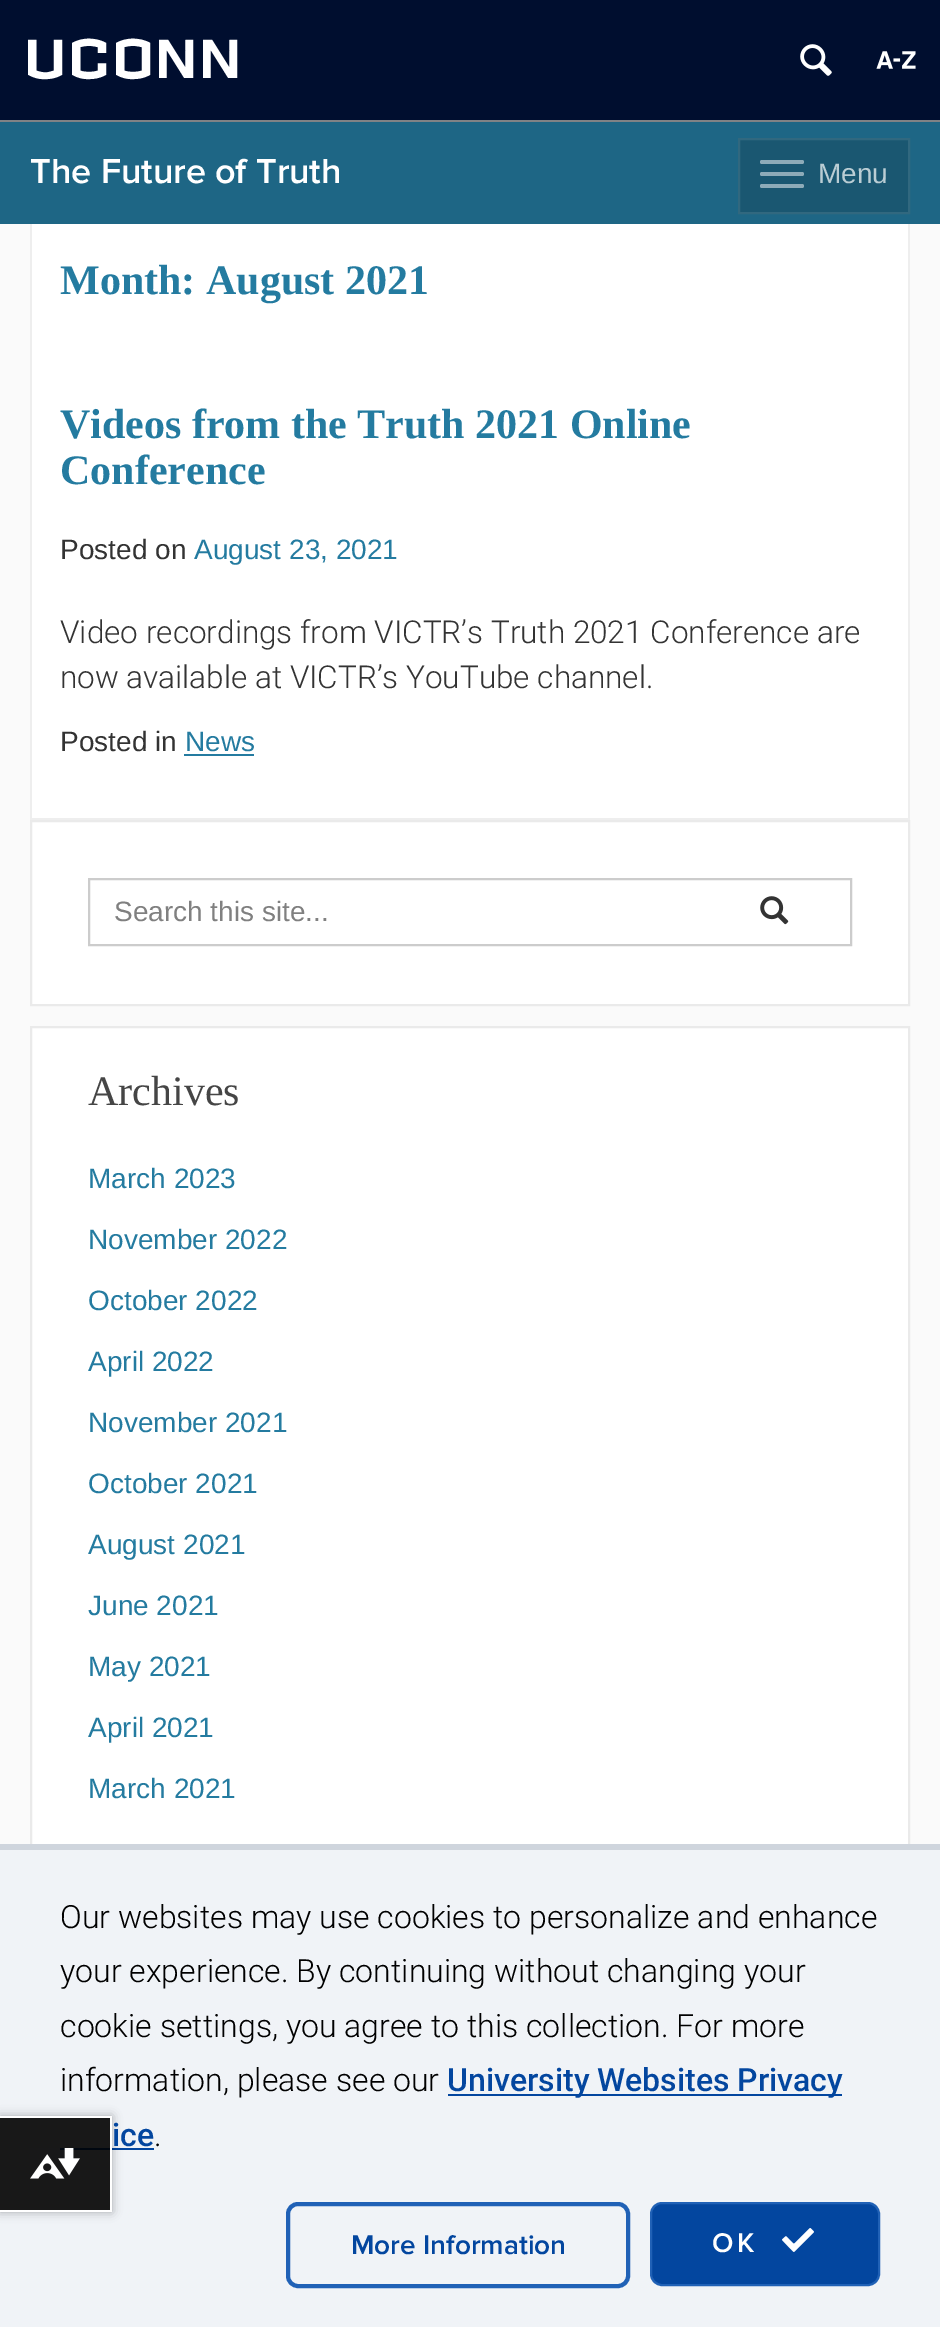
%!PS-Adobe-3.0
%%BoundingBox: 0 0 940 2327
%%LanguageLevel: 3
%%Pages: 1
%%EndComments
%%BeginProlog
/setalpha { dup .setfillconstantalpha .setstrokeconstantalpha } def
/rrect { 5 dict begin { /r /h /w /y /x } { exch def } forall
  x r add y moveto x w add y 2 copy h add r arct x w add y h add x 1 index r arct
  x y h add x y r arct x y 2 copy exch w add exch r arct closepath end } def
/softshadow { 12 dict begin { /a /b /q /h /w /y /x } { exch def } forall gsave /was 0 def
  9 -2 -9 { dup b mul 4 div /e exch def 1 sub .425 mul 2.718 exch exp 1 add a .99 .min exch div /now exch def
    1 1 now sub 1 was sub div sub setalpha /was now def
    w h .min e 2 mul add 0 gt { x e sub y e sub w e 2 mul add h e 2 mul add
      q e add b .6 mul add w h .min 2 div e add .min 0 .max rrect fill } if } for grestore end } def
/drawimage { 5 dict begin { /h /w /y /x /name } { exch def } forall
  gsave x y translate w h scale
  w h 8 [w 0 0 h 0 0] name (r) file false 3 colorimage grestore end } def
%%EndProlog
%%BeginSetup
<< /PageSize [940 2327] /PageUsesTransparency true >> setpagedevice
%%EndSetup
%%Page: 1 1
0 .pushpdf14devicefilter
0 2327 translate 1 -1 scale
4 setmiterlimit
0.98 setgray
0 0 940 2327 rectfill
0 0.055 0.184 setrgbcolor
0 0 940 120 rectfill
0.502 0.51 0.522 setrgbcolor
0 120 940 2 rectfill
(images/1.raw) 800 44 32 32 drawimage
(images/2.raw) 876 51 40 18 drawimage
0.118 0.4 0.522 setrgbcolor
0 122 940 102 rectfill
0.102 0.341 0.443 setrgbcolor
newpath 739 139 moveto 909 139 lineto 909 213 lineto 739 213 lineto closepath gsave fill grestore
0.192 0.408 0.498 setrgbcolor
2 setlinewidth
stroke
0.553 0.671 0.722 setrgbcolor
760 160 44 4 2 rrect fill
760 172 44 4 2 rrect fill
760 184 44 4 2 rrect fill
1 setgray
32 224 876 594 rectfill
0.933 setgray
908 224 2 596 rectfill
30 818 880 2 rectfill
30 224 2 596 rectfill
0.141 0.482 0.627 setrgbcolor
184 754 70 2 rectfill
1 setgray
newpath 31 821 moveto 909 821 lineto 909 1005 lineto 31 1005 lineto closepath gsave fill grestore
0.918 setgray
stroke
0.8 setgray
89 879 762 66 rectstroke
(images/3.raw) 760 896 29 29 drawimage
1 setgray
32 1028 876 816 rectfill
0.918 setgray
31 1027 878 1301 rectstroke
0.941 0.953 0.969 setrgbcolor
0 1850 940 477 rectfill
0.812 0.835 0.867 setrgbcolor
0 1844 940 6 rectfill
0.012 0.275 0.624 setrgbcolor
448 2094 394 2 rectfill
60 2148 94 2 rectfill
0.125 0.38 0.714 setrgbcolor
4 setlinewidth
288 2204 340 82 10 rrect stroke
0.012 0.275 0.624 setrgbcolor
651 2203 228 82 11 rrect gsave fill grestore
0.125 0.38 0.714 setrgbcolor
2 setlinewidth
stroke
(images/4.raw) 782 2228 32 24 drawimage
gsave
newpath 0 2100 moveto 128 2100 lineto 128 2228 lineto 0 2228 lineto closepath 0 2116 moveto 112 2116 lineto 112 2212 lineto 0 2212 lineto closepath eoclip newpath
0 setgray
0 2116 112 96 0 5 0.3 softshadow
grestore
0.9 setalpha
0 setgray
0 2118 110 92 rectfill
1 setalpha
1 setgray
0 2116 112 2 rectfill
110 2116 2 96 rectfill
0 2210 112 2 rectfill
(images/5.raw) 30 2148 50 31 drawimage
/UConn-Regular [64 0 0 -64 0 0] selectfont
28 78 moveto 6 0 (UCONN) ashow
/ProximaNova-SemiBold [36 0 0 -36 0 0] selectfont
30 183 moveto (The Future of Truth) show
/LiberationSans-Regular [28 0 0 -28 0 0] selectfont
0.729 0.804 0.831 setrgbcolor
818 183 moveto (Menu) show
/LiberationSerif-Bold [42 0 0 -42 0 0] selectfont
0.141 0.482 0.627 setrgbcolor
60 294 moveto (Month: August 2021) show
60 438 moveto (Videos from the Truth 2021 Online) show
60 484 moveto (Conference) show
/LiberationSans-Regular [28 0 0 -28 0 0] selectfont
0.2 setgray
60 559 moveto (Posted on) show
0.141 0.482 0.627 setrgbcolor
194 559 moveto (August 23, 2021) show
/Roboto-Light [31.5 0 0 -31.5 0 0] selectfont
0.2 setgray
60 643 moveto (Video recordings from VICTR’s Truth 2021 Conference are) show
60 688 moveto (now available at VICTR’s YouTube channel.) show
/LiberationSans-Regular [28 0 0 -28 0 0] selectfont
60 751 moveto (Posted in) show
0.141 0.482 0.627 setrgbcolor
185 751 moveto (News) show
0.502 setgray
114 921 moveto (Search this site...) show
/LiberationSerif-Regular [42 0 0 -42 0 0] selectfont
0.271 setgray
88 1105 moveto (Archives) show
/LiberationSans-Regular [28 0 0 -28 0 0] selectfont
0.141 0.482 0.627 setrgbcolor
88 1188 moveto (March 2023) show
88 1249 moveto (November 2022) show
88 1310 moveto (October 2022) show
88 1371 moveto (April 2022) show
88 1432 moveto (November 2021) show
88 1493 moveto (October 2021) show
88 1554 moveto (August 2021) show
88 1615 moveto (June 2021) show
88 1676 moveto (May 2021) show
88 1737 moveto (April 2021) show
88 1798 moveto (March 2021) show
/Roboto-Light [32 0 0 -32 0 0] selectfont
0 setgray
60 1928 moveto (Our websites may use cookies to personalize and enhance) show
60 1982 moveto (your experience. By continuing without changing your) show
60 2037 moveto (cookie settings, you agree to this collection. For more) show
60 2091 moveto (information, please see our) show
/Roboto-Medium [32 0 0 -32 0 0] selectfont
0.012 0.275 0.624 setrgbcolor
447 2091 moveto (University Websites Privacy) show
112 2146 moveto (ice) show
/Roboto-Light [32 0 0 -32 0 0] selectfont
0 setgray
154 2146 moveto (.) show
/ProximaNova-SemiBold [28 0 0 -28 0 0] selectfont
0.012 0.275 0.624 setrgbcolor
351 2254 moveto (More Information) show
1 setgray
712 2252 moveto 4 0 (OK) ashow
.poppdf14devicefilter showpage
%%EOF
